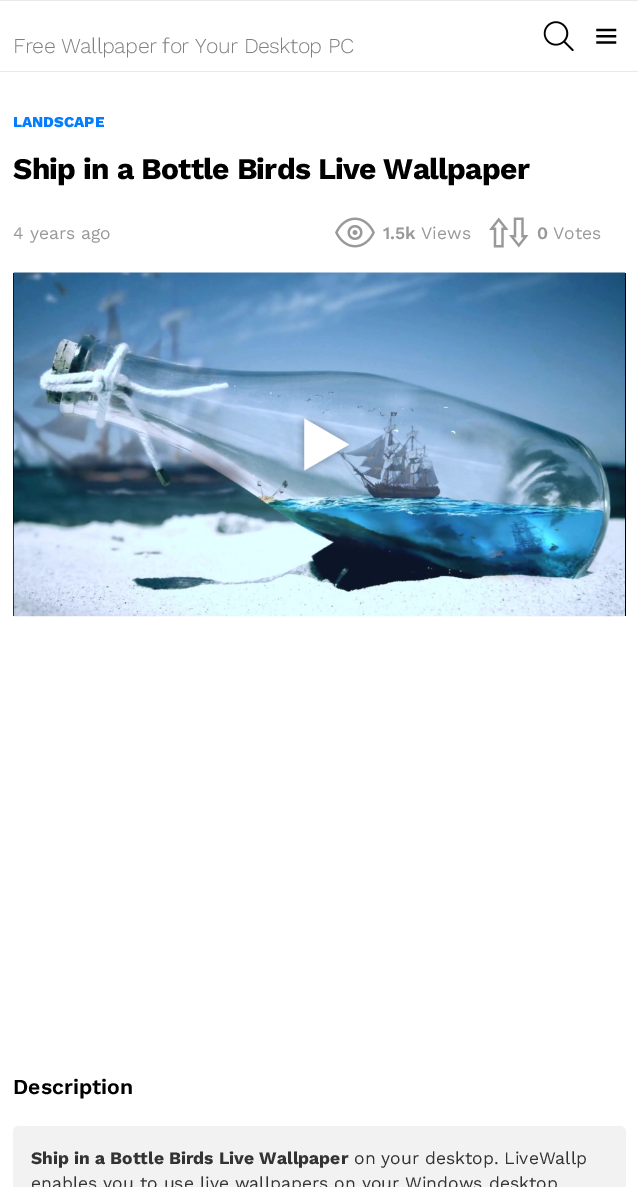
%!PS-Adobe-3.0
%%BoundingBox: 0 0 638 1187
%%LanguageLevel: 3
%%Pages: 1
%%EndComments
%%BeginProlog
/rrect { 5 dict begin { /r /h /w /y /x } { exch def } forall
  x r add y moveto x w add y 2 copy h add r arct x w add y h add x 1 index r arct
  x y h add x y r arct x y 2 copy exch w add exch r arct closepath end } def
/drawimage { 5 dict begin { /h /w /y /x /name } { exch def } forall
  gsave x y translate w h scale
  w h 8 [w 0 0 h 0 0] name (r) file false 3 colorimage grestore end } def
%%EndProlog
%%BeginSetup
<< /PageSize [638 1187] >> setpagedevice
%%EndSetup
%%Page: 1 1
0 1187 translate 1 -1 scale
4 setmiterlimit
1 setgray
0 0 638 1187 rectfill
0.914 setgray
0 0 638 1 rectfill
(images/1.raw) 543 21 31 31 drawimage
(images/2.raw) 596 28 21 16 drawimage
0 71 638 1 rectfill
(images/3.raw) 335 217 40 31 drawimage
(images/4.raw) 489 217 40 31 drawimage
0 setgray
13 273 613 343 rectfill
(images/5.raw) 13 272 612 345 drawimage
(images/6.raw) 297 414 56 61 drawimage
0.949 setgray
13 1126 613 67 6 rrect fill
/WorkSans-Light [21.25 0 0 -21.25 0 0] selectfont
0.502 setgray
13 53 moveto -0.55 0 (Free Wallpaper for Your Desktop PC) ashow
/WorkSans-ExtraBold [15 0 0 -15 0 0] selectfont
0.02 0.49 1 setrgbcolor
13 127 moveto (LANDSCAPE) show
/WorkSans-Bold [30 0 0 -30 0 0] selectfont
0 setgray
13 179 moveto -0.75 0 (Ship in a Bottle Birds Live Wallpaper) ashow
/WorkSans-Regular [17.5 0 0 -17.5 0 0] selectfont
0.6 setgray
13 239 moveto (4 years ago) show
/WorkSans-SemiBold [17.5 0 0 -17.5 0 0] selectfont
383 239 moveto (1.5k) show
/WorkSans-Regular [17.5 0 0 -17.5 0 0] selectfont
421 239 moveto (Views) show
/WorkSans-SemiBold [17.5 0 0 -17.5 0 0] selectfont
537 239 moveto (0) show
/WorkSans-Regular [17.5 0 0 -17.5 0 0] selectfont
553 239 moveto (Votes) show
/WorkSans-SemiBold [21.25 0 0 -21.25 0 0] selectfont
0 setgray
13 1094 moveto (Description) show
/WorkSans-Bold [17.5 0 0 -17.5 0 0] selectfont
0.2 setgray
31 1164 moveto (Ship in a Bottle Birds Live Wallpaper) show
/WorkSans-Regular [17.5 0 0 -17.5 0 0] selectfont
354 1164 moveto (on your desktop. LiveWallp) show
31 1189 moveto (enables you to use live wallpapers on your Windows desktop) show
showpage
%%EOF
